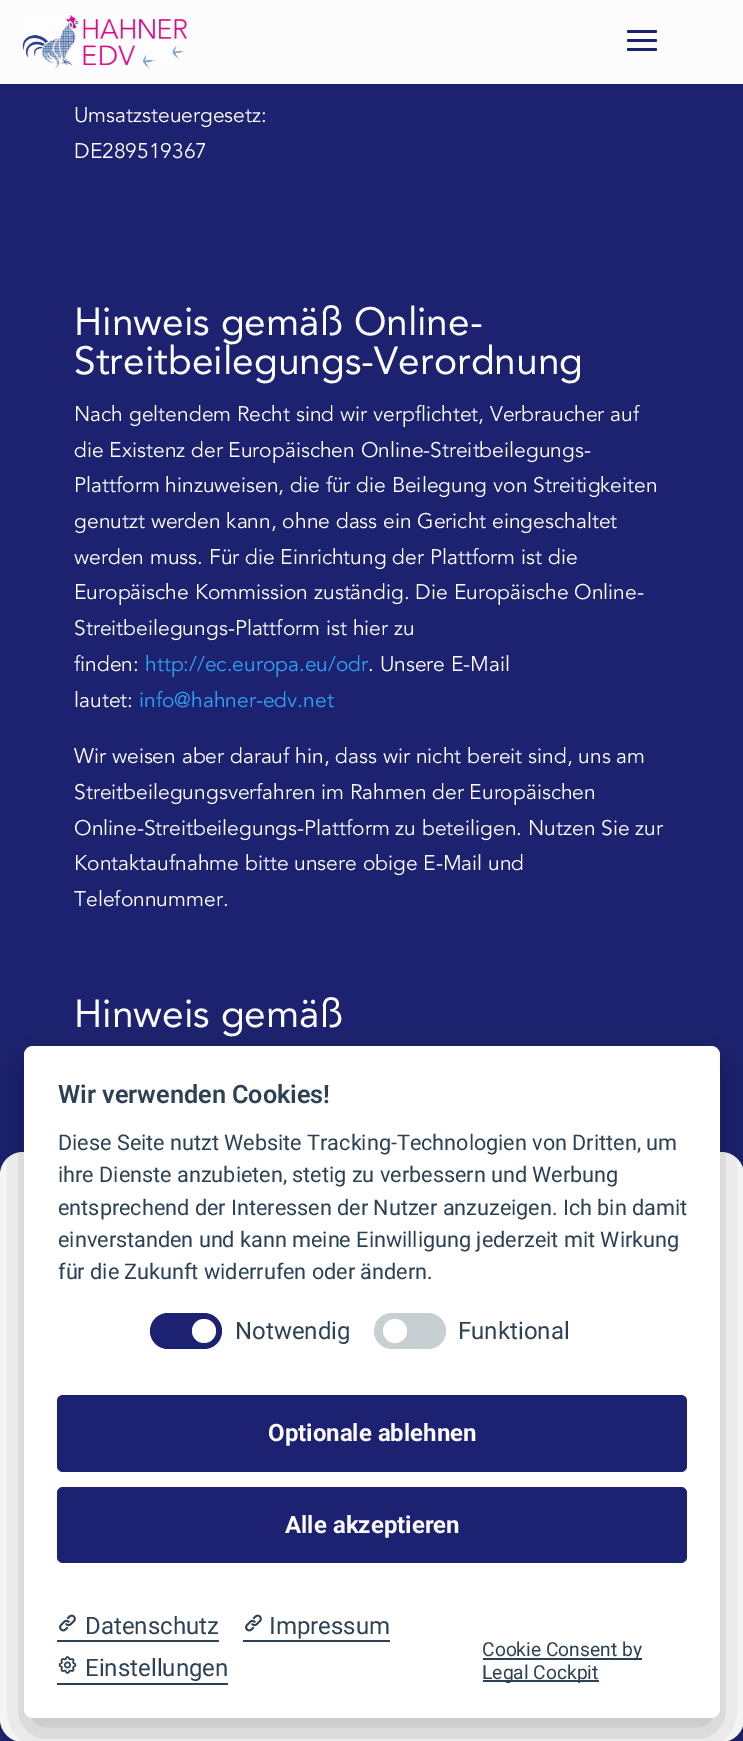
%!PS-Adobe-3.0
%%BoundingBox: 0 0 743 1741
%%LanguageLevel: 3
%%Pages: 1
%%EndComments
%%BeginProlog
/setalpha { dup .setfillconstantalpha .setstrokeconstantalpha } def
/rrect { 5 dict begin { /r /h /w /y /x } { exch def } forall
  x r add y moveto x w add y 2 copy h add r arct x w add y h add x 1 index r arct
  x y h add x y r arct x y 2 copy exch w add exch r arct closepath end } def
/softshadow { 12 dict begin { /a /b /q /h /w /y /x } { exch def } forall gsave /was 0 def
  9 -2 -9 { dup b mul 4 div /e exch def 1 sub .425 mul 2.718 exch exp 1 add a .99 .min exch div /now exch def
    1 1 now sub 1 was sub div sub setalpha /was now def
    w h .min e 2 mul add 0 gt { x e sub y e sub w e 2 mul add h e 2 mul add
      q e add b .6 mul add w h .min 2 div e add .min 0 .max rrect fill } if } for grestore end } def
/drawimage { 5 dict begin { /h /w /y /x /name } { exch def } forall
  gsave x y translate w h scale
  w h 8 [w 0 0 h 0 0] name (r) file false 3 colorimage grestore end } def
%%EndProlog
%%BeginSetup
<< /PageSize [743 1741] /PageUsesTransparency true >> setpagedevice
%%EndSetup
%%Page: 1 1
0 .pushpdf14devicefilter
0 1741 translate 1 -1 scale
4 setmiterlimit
0.11 0.133 0.439 setrgbcolor
0 0 743 1741 rectfill
0.988 setgray
0 0 743 84 rectfill
(images/1.raw) 22 15 165 54 drawimage
0.11 0.133 0.439 setrgbcolor
627 39 30 3 1.5 rrect fill
627 30 30 3 1.5 rrect fill
627 48 30 3 1.5 rrect fill
0 setgray
0 1155 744 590 23 15 0.14 softshadow
1 setgray
0 1152 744 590 23 rrect fill
0.008 0.008 0.012 setrgbcolor
24 1061 696 672 9 22.5 0.28 softshadow
1 setgray
24 1046 696 672 9 rrect fill
0.11 0.133 0.443 setrgbcolor
150 1313 72 36 18 rrect fill
1 setgray
newpath 204 1331 12 0 360 arc closepath fill
0.784 0.812 0.827 setrgbcolor
374 1313 72 36 18 rrect fill
1 setgray
newpath 395 1331 12 0 360 arc closepath fill
0.11 0.133 0.443 setrgbcolor
57 1395 630 77 6 rrect fill
57 1487 630 76 6 rrect fill
0.176 0.255 0.337 setrgbcolor
57 1640 162 2 rectfill
(images/2.raw) 59 1614 17 18 drawimage
243 1640 147 2 rectfill
(images/2.raw) 245 1614 17 18 drawimage
57 1683 171 2 rectfill
(images/3.raw) 58 1656 19 18 drawimage
483 1658 159 2 rectfill
483 1680 116 2 rectfill
/Avenir-Regular [21 0 0 -21 0 0] selectfont
0.988 setgray
74 122 moveto (Umsatzsteuergesetz:) show
74 158 moveto (DE289519367) show
/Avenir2-Regular [39 0 0 -39 0 0] selectfont
74 335 moveto (Hinweis gemäß Online-) show
74 374 moveto (Streitbeilegungs-Verordnung) show
/Avenir-Regular [21 0 0 -21 0 0] selectfont
74 421 moveto (Nach geltendem Recht sind wir verpflichtet, Verbraucher auf) show
74 457 moveto (die Existenz der Europäischen Online-Streitbeilegungs-) show
74 492 moveto (Plattform hinzuweisen, die für die Beilegung von Streitigkeiten) show
74 528 moveto (genutzt werden kann, ohne dass ein Gericht eingeschaltet) show
74 564 moveto (werden muss. Für die Einrichtung der Plattform ist die) show
74 599 moveto (Europäische Kommission zuständig. Die Europäische Online-) show
74 635 moveto (Streitbeilegungs-Plattform ist hier zu) show
74 671 moveto (finden:) show
0.18 0.631 0.941 setrgbcolor
145 671 moveto (http://ec.europa.eu/odr) show
0.988 setgray
368 671 moveto (. Unsere E-Mail) show
74 707 moveto (lautet:) show
0.18 0.631 0.941 setrgbcolor
139 707 moveto (info@hahner-edv.net) show
0.988 setgray
74 763 moveto (Wir weisen aber darauf hin, dass wir nicht bereit sind, uns am) show
74 799 moveto (Streitbeilegungsverfahren im Rahmen der Europäischen) show
74 835 moveto (Online-Streitbeilegungs-Plattform zu beteiligen. Nutzen Sie zur) show
74 870 moveto (Kontaktaufnahme bitte unsere obige E-Mail und) show
74 906 moveto (Telefonnummer.) show
/Avenir2-Regular [39 0 0 -39 0 0] selectfont
74 1027 moveto (Hinweis gemäß) show
/Roboto-SemiBold [25.25 0 0 -25.25 0 0] selectfont
0.176 0.255 0.337 setrgbcolor
58 1103 moveto (Wir verwenden Cookies!) show
/Roboto-Regular [21.6 0 0 -21.6 0 0] selectfont
58 1150 moveto (Diese Seite nutzt Website Tracking-Technologien von Dritten, um) show
58 1182 moveto (ihre Dienste anzubieten, stetig zu verbessern und Werbung) show
58 1215 moveto (entsprechend der Interessen der Nutzer anzuzeigen. Ich bin damit) show
58 1247 moveto (einverstanden und kann meine Einwilligung jederzeit mit Wirkung) show
58 1279 moveto (für die Zukunft widerrufen oder ändern.) show
/Roboto-Regular [24 0 0 -24 0 0] selectfont
235 1339 moveto (Notwendig) show
458 1339 moveto (Funktional) show
/Roboto-Bold [24 0 0 -24 0 0] selectfont
0.988 setgray
268 1441 moveto (Optionale ablehnen) show
285 1533 moveto (Alle akzeptieren) show
/Roboto-Regular [24 0 0 -24 0 0] selectfont
0.176 0.255 0.337 setrgbcolor
85 1634 moveto (Datenschutz) show
269 1634 moveto (Impressum) show
85 1676 moveto (Einstellungen) show
/Roboto-Regular [19.25 0 0 -19.25 0 0] selectfont
482 1656 moveto (Cookie Consent by) show
482 1679 moveto (Legal Cockpit) show
.poppdf14devicefilter showpage
%%EOF
